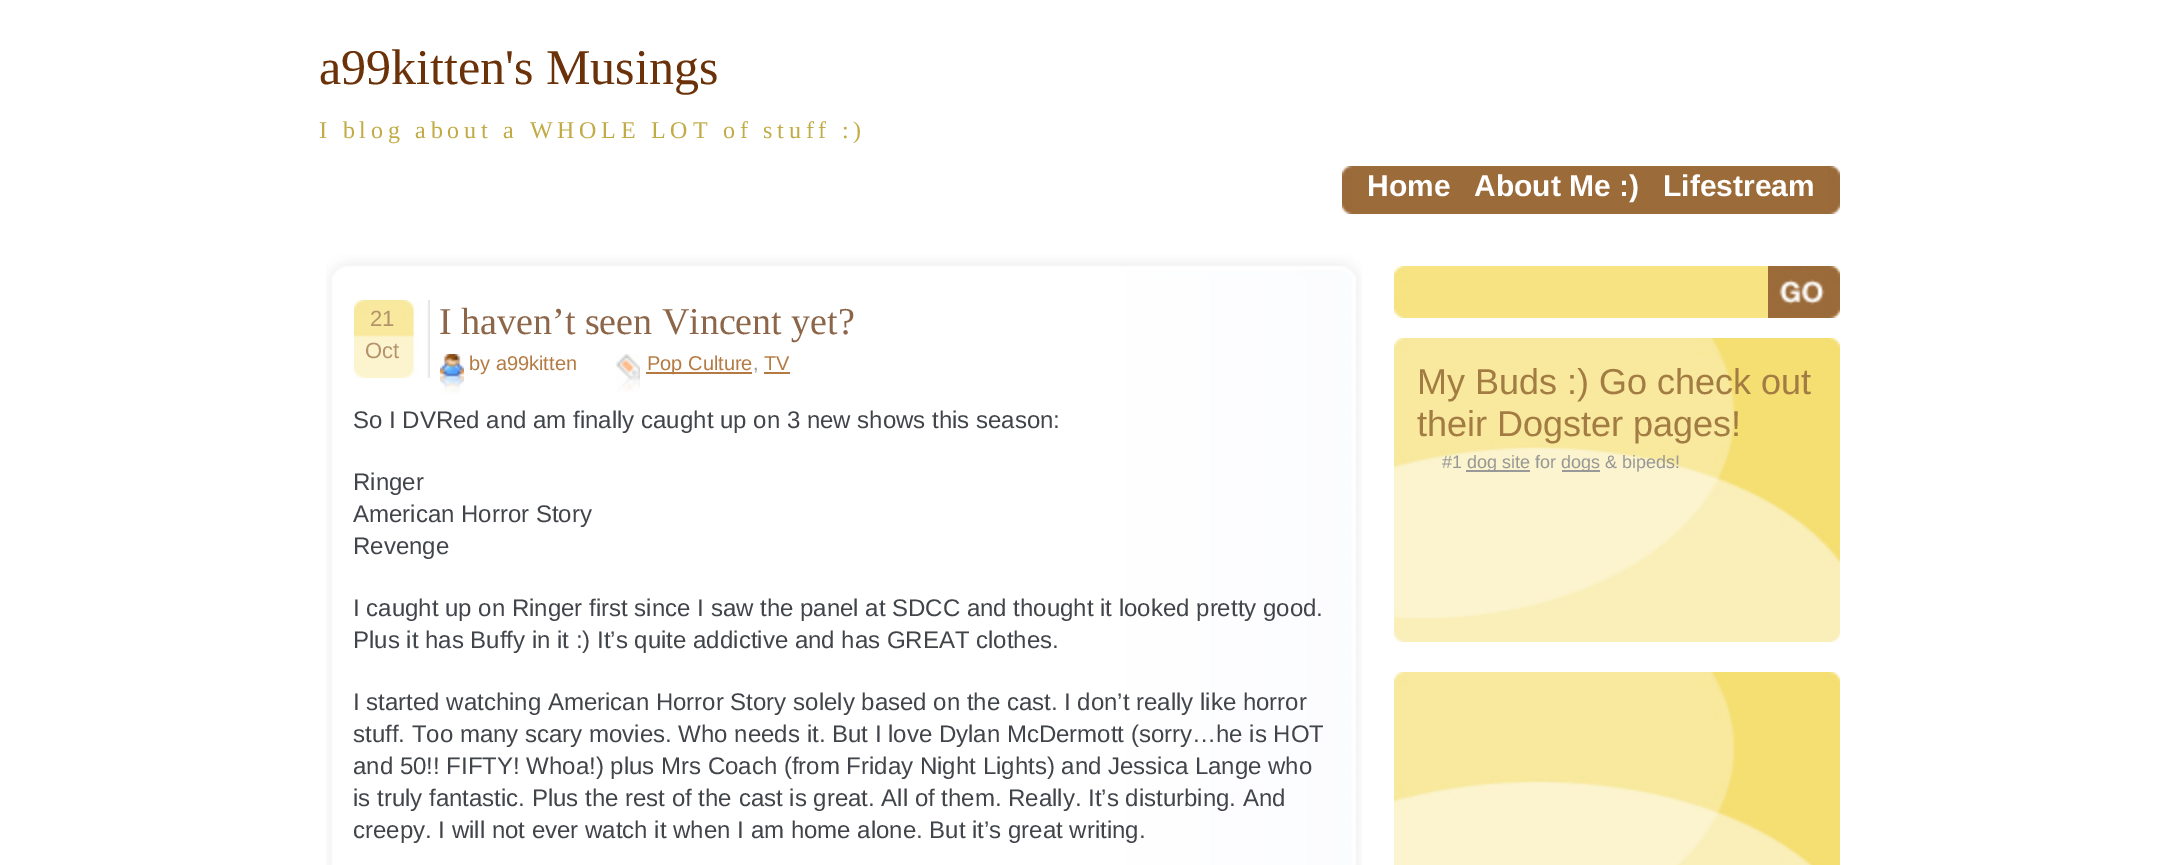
%!PS-Adobe-3.0
%%BoundingBox: 0 0 2158 865
%%LanguageLevel: 3
%%Pages: 1
%%EndComments
%%BeginProlog
/drawimage { 5 dict begin { /h /w /y /x /name } { exch def } forall
  gsave x y translate w h scale
  w h 8 [w 0 0 h 0 0] name (r) file false 3 colorimage grestore end } def
%%EndProlog
%%BeginSetup
<< /PageSize [2158 865] >> setpagedevice
%%EndSetup
%%Page: 1 1
0 865 translate 1 -1 scale
4 setmiterlimit
1 setgray
0 0 2158 865 rectfill
(images/1.raw) 1828 166 12 48 drawimage
0.608 0.42 0.227 setrgbcolor
1352 166 476 48 rectfill
(images/2.raw) 1342 166 10 48 drawimage
(images/3.raw) 326 276 1036 589 drawimage
(images/4.raw) 326 254 1036 22 drawimage
(images/5.raw) 354 300 76 78 drawimage
(images/6.raw) 440 354 24 40 drawimage
(images/7.raw) 616 354 24 38 drawimage
0.71 0.478 0.259 setrgbcolor
646 372 106 2 rectfill
764 372 26 2 rectfill
0.969 0.89 0.51 setrgbcolor
1405 266 363 52 rectfill
(images/8.raw) 1394 266 11 52 drawimage
(images/9.raw) 1768 266 72 52 drawimage
0.98 0.937 0.725 setrgbcolor
1394 618 446 14 rectfill
(images/10.raw) 1394 338 446 280 drawimage
(images/11.raw) 1394 632 446 10 drawimage
0.6 setgray
1466 470 64 2 rectfill
1562 470 38 2 rectfill
(images/12.raw) 1394 672 446 193 drawimage
/LiberationSerif-Regular [50 0 0 -50 0 0] selectfont
0.42 0.192 0.035 setrgbcolor
319 84 moveto (a99kitten's Musings) show
/LiberationSerif-Regular [24 0 0 -24 0 0] selectfont
0.757 0.671 0.271 setrgbcolor
319 138 moveto 4.8 0 (I blog about a WHOLE LOT of stuff :\)) ashow
/LiberationSans-Bold [30 0 0 -30 0 0] selectfont
1 setgray
1367 196 moveto (Home) show
1474 196 moveto (About Me :\)) show
1663 196 moveto (Lifestream) show
/LiberationSans-Regular [22 0 0 -22 0 0] selectfont
0.706 0.576 0.416 setrgbcolor
370 326 moveto (21) show
365 358 moveto (Oct) show
/LiberationSerif-Regular [38 0 0 -38 0 0] selectfont
0.553 0.4 0.286 setrgbcolor
439 334 moveto (I haven’t seen Vincent yet?) show
/LiberationSans-Regular [20 0 0 -20 0 0] selectfont
0.71 0.478 0.259 setrgbcolor
469 370 moveto (by a99kitten) show
647 370 moveto (Pop Culture) show
0.592 0.592 0.584 setrgbcolor
753 370 moveto (,) show
0.71 0.478 0.259 setrgbcolor
764 370 moveto (TV) show
/LiberationSans-Regular [24 0 0 -24 0 0] selectfont
0.255 0.267 0.286 setrgbcolor
353 428 moveto (So I DVRed and am finally caught up on 3 new shows this season:) show
353 490 moveto (Ringer) show
353 522 moveto (American Horror Story) show
353 554 moveto (Revenge) show
353 616 moveto (I caught up on Ringer first since I saw the panel at SDCC and thought it looked pretty good.) show
353 648 moveto (Plus it has Buffy in it :\) It’s quite addictive and has GREAT clothes.) show
353 710 moveto (I started watching American Horror Story solely based on the cast. I don’t really like horror) show
353 742 moveto (stuff. Too many scary movies. Who needs it. But I love Dylan McDermott \(sorry…he is HOT) show
353 774 moveto (and 50!! FIFTY! Whoa!\) plus Mrs Coach \(from Friday Night Lights\) and Jessica Lange who) show
353 806 moveto (is truly fantastic. Plus the rest of the cast is great. All of them. Really. It’s disturbing. And) show
353 838 moveto (creepy. I will not ever watch it when I am home alone. But it’s great writing.) show
/LiberationSans-Regular [36 0 0 -36 0 0] selectfont
0.639 0.486 0.263 setrgbcolor
1417 394 moveto (My Buds :\) Go check out) show
1417 436 moveto (their Dogster pages!) show
/LiberationSans-Regular [18 0 0 -18 0 0] selectfont
0.592 0.592 0.584 setrgbcolor
1442 468 moveto (#1) show
1467 468 moveto (dog site for) show
1561 468 moveto (dogs & bipeds!) show
showpage
%%EOF
